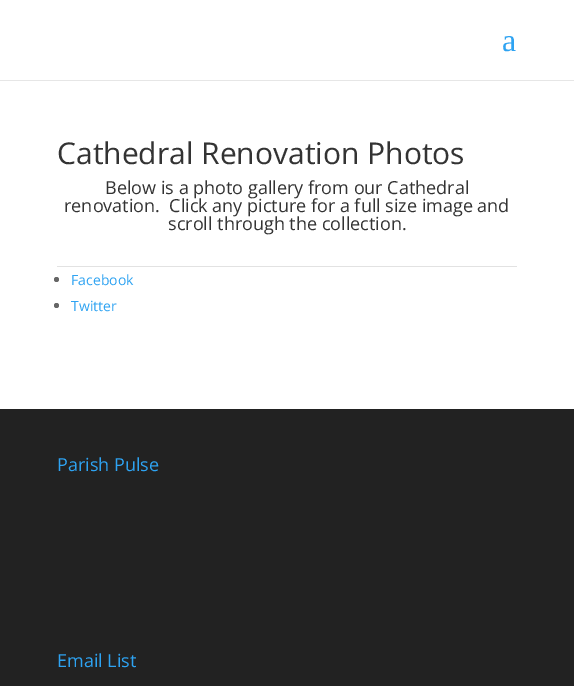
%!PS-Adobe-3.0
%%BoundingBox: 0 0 574 686
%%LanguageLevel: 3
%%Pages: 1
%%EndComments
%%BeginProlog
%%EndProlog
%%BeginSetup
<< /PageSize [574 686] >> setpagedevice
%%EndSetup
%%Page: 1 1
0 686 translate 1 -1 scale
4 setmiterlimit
1 setgray
0 0 574 686 rectfill
0.902 setgray
0 80 574 1 rectfill
0.886 setgray
57 266 460 1 rectfill
0.4 setgray
newpath 56.5 279.5 2.5 0 360 arc closepath fill
newpath 56.5 305.5 2.5 0 360 arc closepath fill
0.133 setgray
0 409 574 277 rectfill
/LiberationSerif-Regular [32 0 0 -32 0 0] selectfont
0.18 0.639 0.949 setrgbcolor
502 51 moveto (a) show
/OpenSans-Regular [30 0 0 -30 0 0] selectfont
0.2 setgray
57 164 moveto (Cathedral Renovation Photos) show
/OpenSans-Regular [18 0 0 -18 0 0] selectfont
105 194 moveto (Below is a photo gallery from our Cathedral) show
64 212 moveto (renovation.  Click any picture for a full size image and) show
168 230 moveto (scroll through the collection.) show
/OpenSans-Regular [14 0 0 -14 0 0] selectfont
0.18 0.639 0.949 setrgbcolor
71 285 moveto (Facebook) show
71 311 moveto (Twitter) show
/OpenSans-Regular [18 0 0 -18 0 0] selectfont
57 471 moveto (Parish Pulse) show
57 667 moveto (Email List) show
showpage
%%EOF
